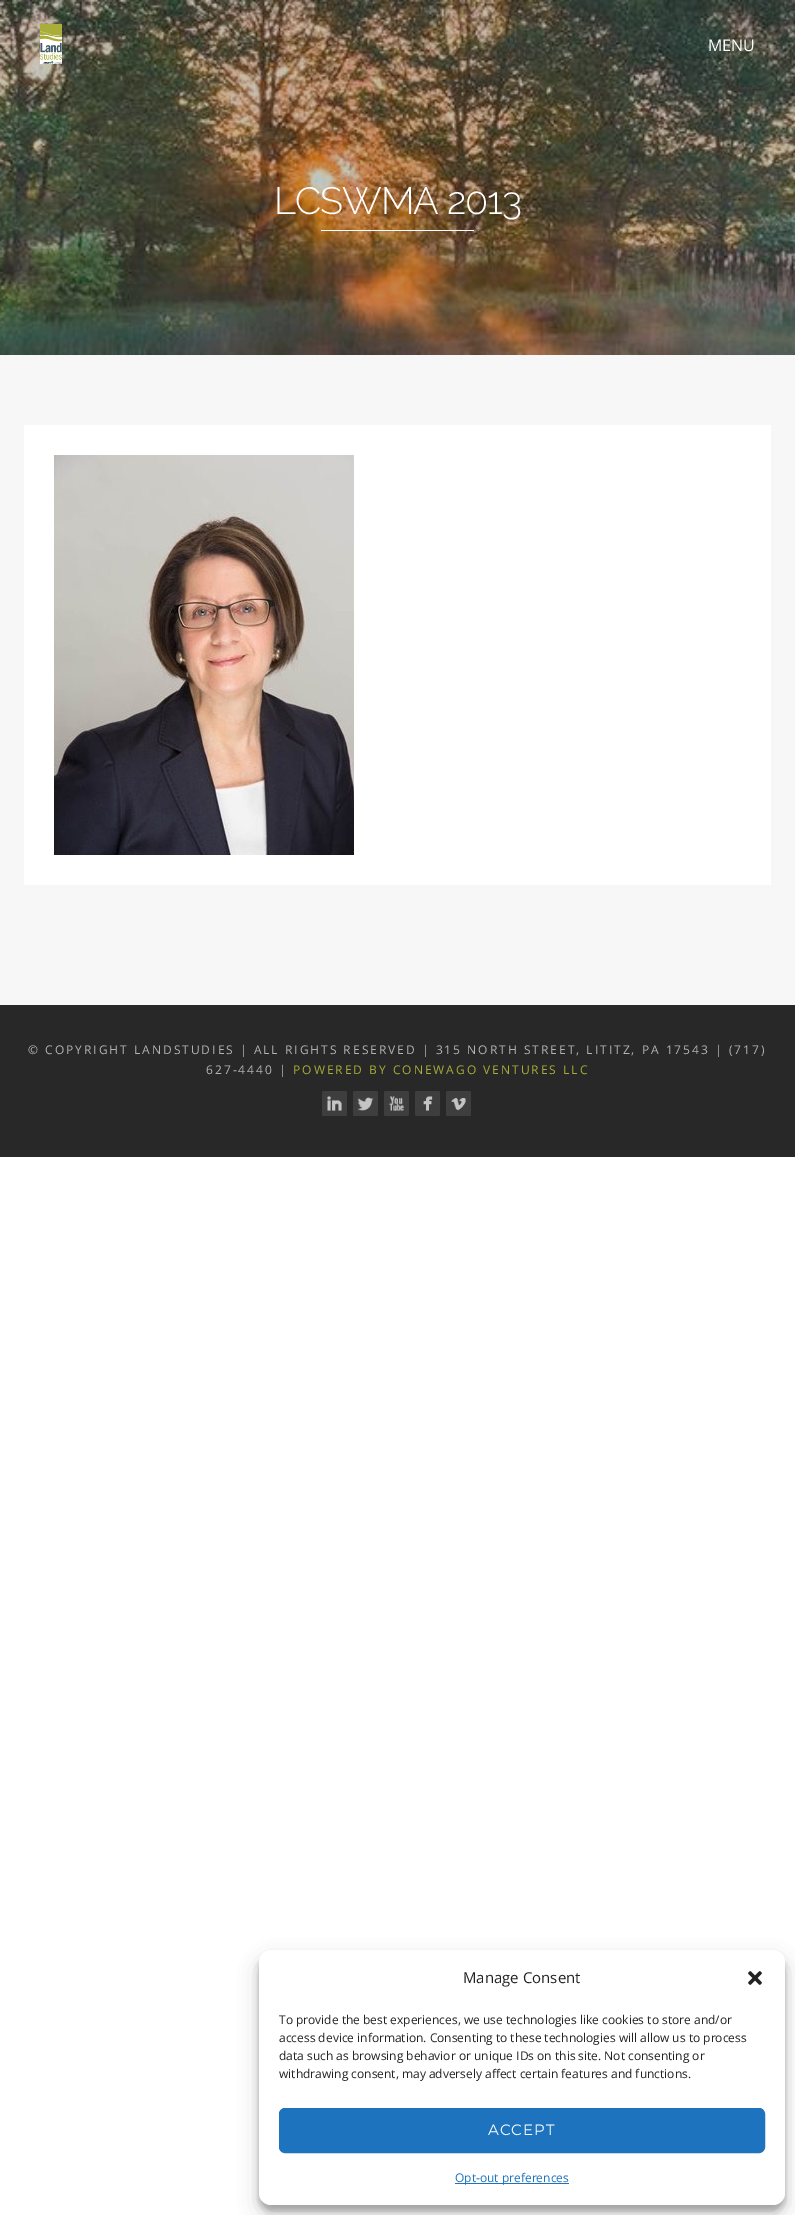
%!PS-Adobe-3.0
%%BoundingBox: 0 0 795 2215
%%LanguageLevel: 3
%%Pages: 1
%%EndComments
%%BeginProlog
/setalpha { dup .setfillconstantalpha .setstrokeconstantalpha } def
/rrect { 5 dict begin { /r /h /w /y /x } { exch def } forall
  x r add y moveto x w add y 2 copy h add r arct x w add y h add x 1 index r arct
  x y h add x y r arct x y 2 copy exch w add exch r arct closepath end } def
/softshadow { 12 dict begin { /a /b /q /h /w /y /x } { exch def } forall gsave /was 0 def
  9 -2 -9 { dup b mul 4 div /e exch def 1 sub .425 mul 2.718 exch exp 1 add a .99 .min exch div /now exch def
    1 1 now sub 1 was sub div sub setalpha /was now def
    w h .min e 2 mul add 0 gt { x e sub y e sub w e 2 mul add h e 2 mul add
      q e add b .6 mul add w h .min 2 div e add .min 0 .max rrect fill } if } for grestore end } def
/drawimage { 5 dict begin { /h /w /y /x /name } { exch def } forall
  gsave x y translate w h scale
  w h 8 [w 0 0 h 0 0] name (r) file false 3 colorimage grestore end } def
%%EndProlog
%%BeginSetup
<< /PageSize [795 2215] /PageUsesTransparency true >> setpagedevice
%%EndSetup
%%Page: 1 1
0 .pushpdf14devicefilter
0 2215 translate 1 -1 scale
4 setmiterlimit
1 setgray
0 0 795 2215 rectfill
0.969 setgray
0 0 795 1005 rectfill
(images/1.raw) 0 0 795 355 drawimage
(images/2.raw) 40 24 22 40 drawimage
1 setgray
321 230 153 1 rectfill
24 425 747 460 rectfill
(images/3.raw) 54 455 300 400 drawimage
0.157 setgray
0 1005 795 152 rectfill
0.243 setgray
322 1091 25 25 2 rrect fill
(images/4.raw) 327 1096 15 15 drawimage
353 1091 25 25 2 rrect fill
(images/5.raw) 357 1097 17 14 drawimage
384 1091 25 25 2 rrect fill
(images/6.raw) 389 1096 15 15 drawimage
415 1091 25 25 2 rrect fill
(images/7.raw) 423 1096 10 15 drawimage
446 1091 25 25 2 rrect fill
(images/8.raw) 451 1098 15 13 drawimage
0 setgray
259 1956 526 255 12 3 0.23 softshadow
259 1960 526 255 12 10 0.19 softshadow
1 setgray
259 1950 526 255 12 rrect fill
(images/9.raw) 748 1971 14 14 drawimage
0.118 0.451 0.745 setrgbcolor
279.5 2108.5 485 44 5.5 rrect gsave fill grestore
stroke
455 2183 114 1 rectfill
/OpenSans-Regular [16 0 0 -16 0 0] selectfont
1 setgray
708 51 moveto (MENU) show
/Raleway-Thin [38 0 0 -38 0 0] selectfont
274 214 moveto -1 0 (LCSWMA 2013) ashow
/OpenSans-Regular [12 0 0 -12 0 0] selectfont
0.702 0.702 0.694 setrgbcolor
28 1054 moveto 2 0 (© COPYRIGHT LANDSTUDIES | ALL RIGHTS RESERVED | 315 NORTH STREET, LITITZ, PA 17543 | \(717\)) ashow
206 1074 moveto 2 0 (627-4440 |) ashow
0.655 0.678 0.216 setrgbcolor
293 1074 moveto 2 0 (POWERED BY CONEWAGO VENTURES LLC) ashow
/OpenSans-Regular [15 0 0 -15 0 0] selectfont
0.133 setgray
463 1983 moveto (Manage Consent) show
/OpenSans-Regular [12 0 0 -12 0 0] selectfont
279 2024 moveto (To provide the best experiences, we use technologies like cookies to store and/or) show
279 2042 moveto (access device information. Consenting to these technologies will allow us to process) show
279 2060 moveto (data such as browsing behavior or unique IDs on this site. Not consenting or) show
279 2078 moveto (withdrawing consent, may adversely affect certain features and functions.) show
/Montserrat-Regular [15 0 0 -15 0 0] selectfont
1 setgray
488 2135 moveto 1 0 (ACCEPT) ashow
/OpenSans-Regular [12 0 0 -12 0 0] selectfont
0.118 0.451 0.745 setrgbcolor
455 2182 moveto (Opt-out preferences) show
.poppdf14devicefilter showpage
%%EOF
